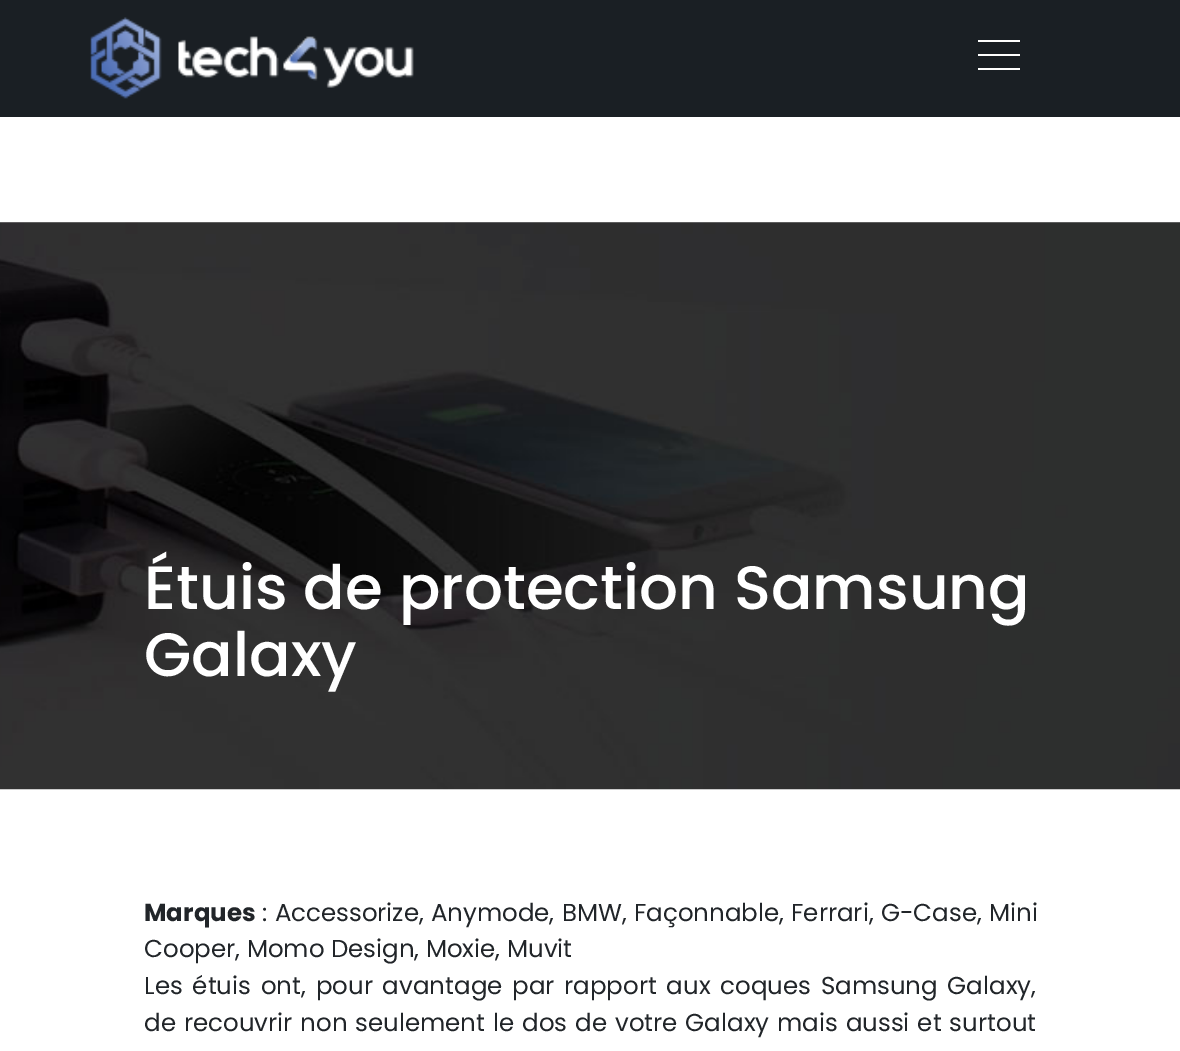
%!PS-Adobe-3.0
%%BoundingBox: 0 0 1180 1051
%%LanguageLevel: 3
%%Pages: 1
%%EndComments
%%BeginProlog
/drawimage { 5 dict begin { /h /w /y /x /name } { exch def } forall
  gsave x y translate w h scale
  w h 8 [w 0 0 h 0 0] name (r) file false 3 colorimage grestore end } def
%%EndProlog
%%BeginSetup
<< /PageSize [1180 1051] >> setpagedevice
%%EndSetup
%%Page: 1 1
0 1051 translate 1 -1 scale
4 setmiterlimit
1 setgray
0 0 1180 1051 rectfill
0.102 0.122 0.141 setrgbcolor
0 0 1180 117 rectfill
(images/1.raw) 90 17 324 82 drawimage
1 setgray
978 40 42 2 rectfill
978 54 42 2 rectfill
978 68 42 2 rectfill
(images/2.raw) 0 222 1180 568 drawimage
/Poppins-Medium [61.25 0 0 -61.25 0 0] selectfont
144 609 moveto (Étuis de protection Samsung) show
144 676 moveto (Galaxy) show
/Poppins-Bold [24.5 0 0 -24.5 0 0] selectfont
0.129 0.145 0.161 setrgbcolor
144 921 moveto (Marques) show
/Poppins-Regular [24.5 0 0 -24.5 0 0] selectfont
262 921 moveto 0.75 0 32 (: Accessorize, Anymode, BMW, Façonnable, Ferrari, G-Case, Mini) widthshow
144 957 moveto (Cooper, Momo Design, Moxie, Muvit) show
144 994 moveto 3.25 0 32 (Les étuis ont, pour avantage par rapport aux coques Samsung Galaxy,) widthshow
144 1031 moveto 1.4 0 32 (de recouvrir non seulement le dos de votre Galaxy mais aussi et surtout) widthshow
showpage
%%EOF
